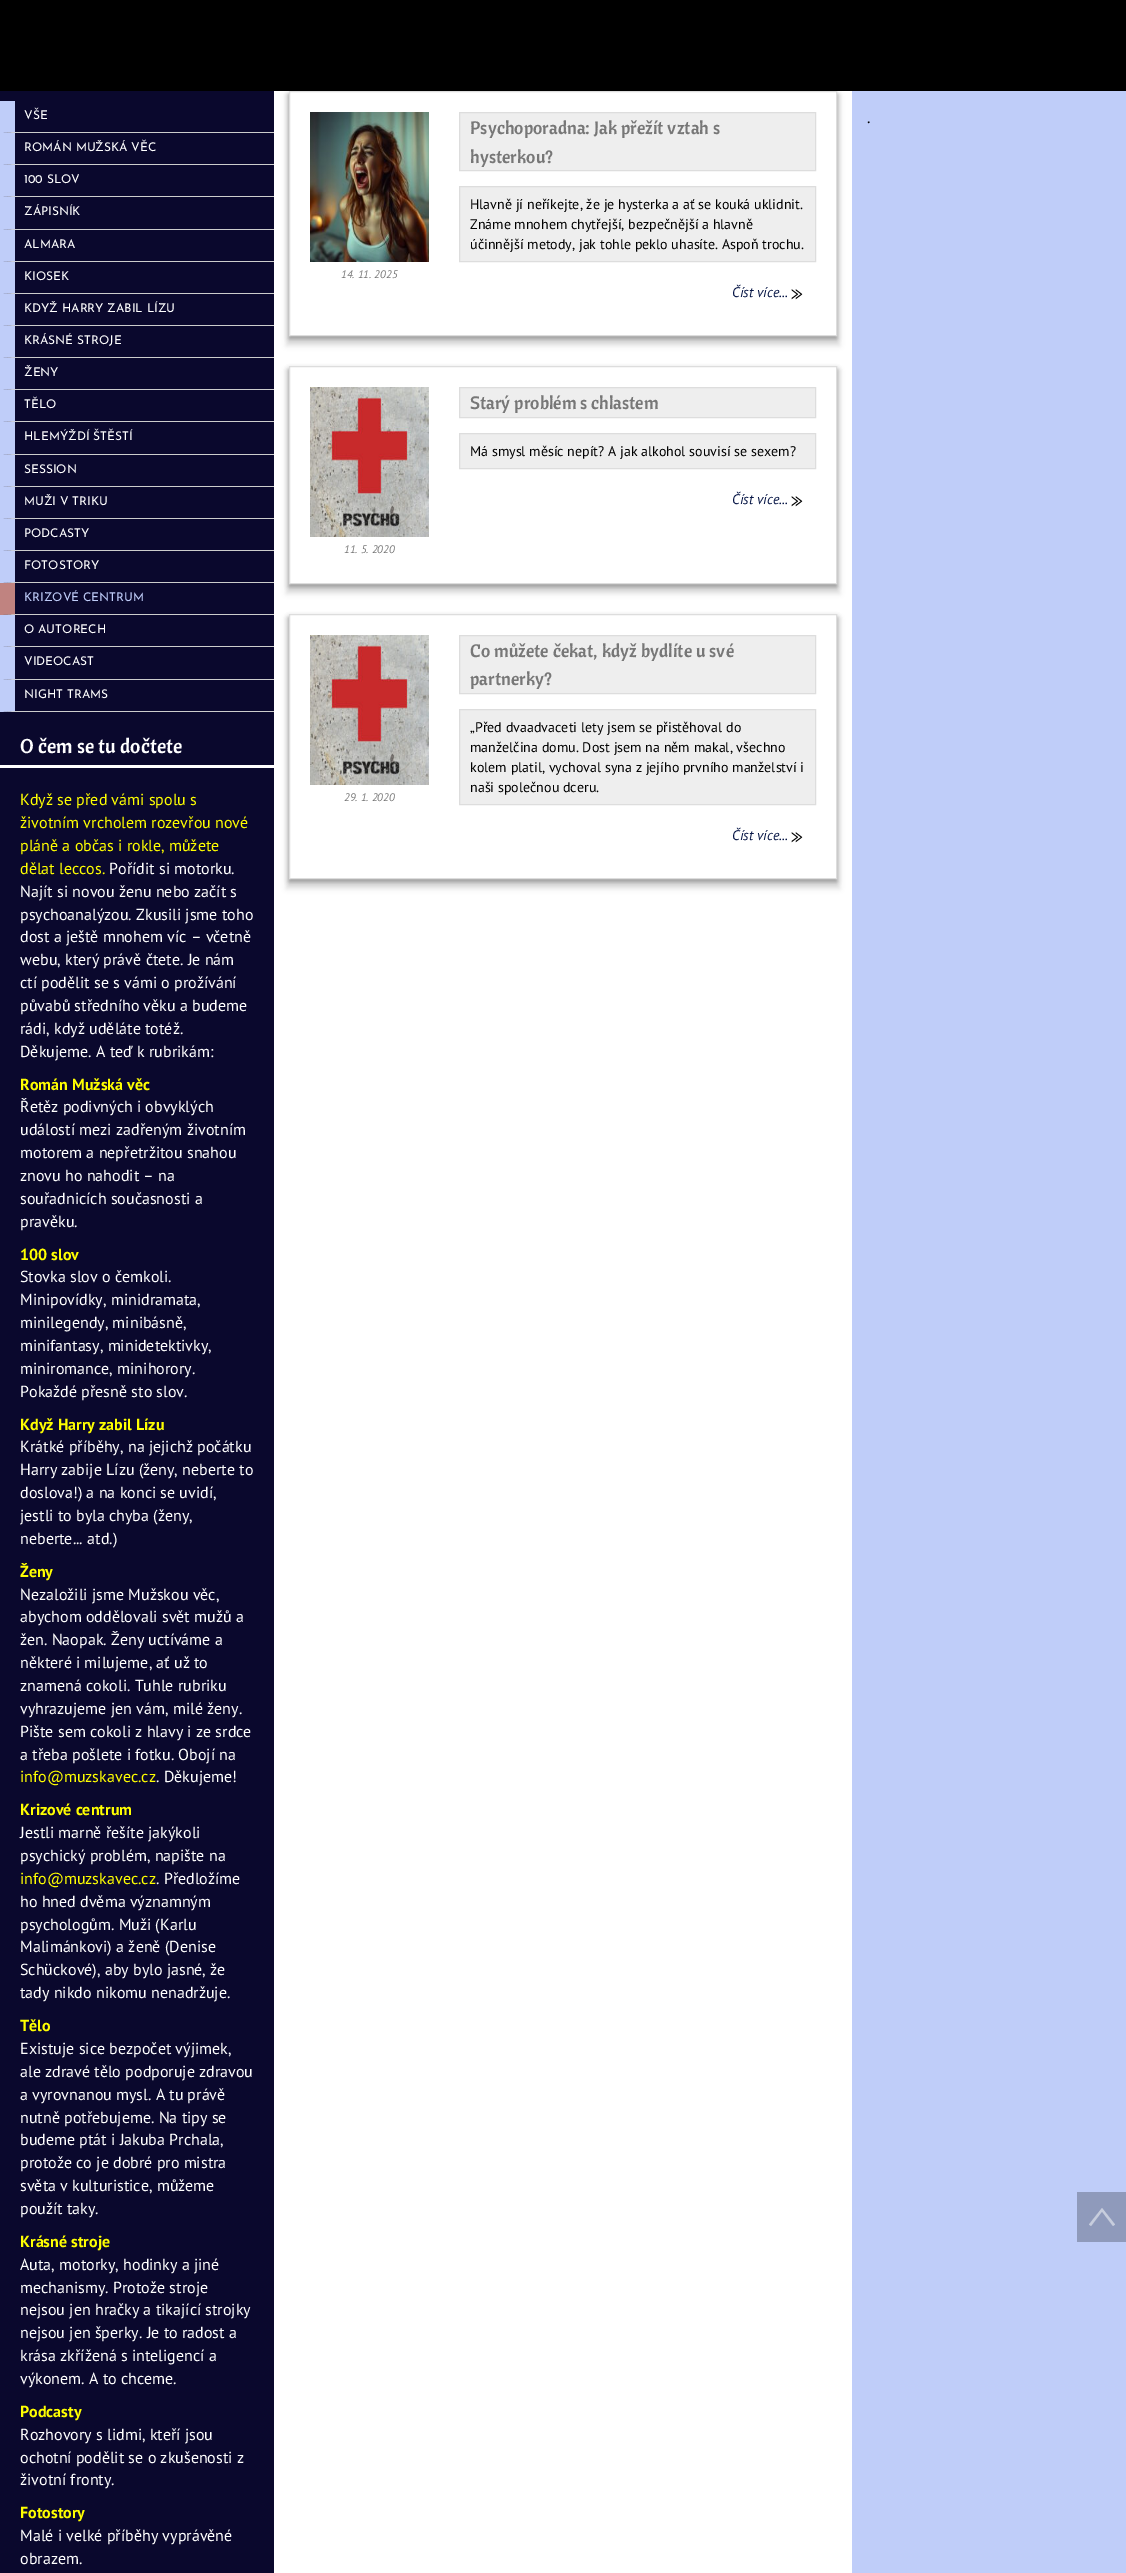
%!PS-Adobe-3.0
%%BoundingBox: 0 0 1126 2573
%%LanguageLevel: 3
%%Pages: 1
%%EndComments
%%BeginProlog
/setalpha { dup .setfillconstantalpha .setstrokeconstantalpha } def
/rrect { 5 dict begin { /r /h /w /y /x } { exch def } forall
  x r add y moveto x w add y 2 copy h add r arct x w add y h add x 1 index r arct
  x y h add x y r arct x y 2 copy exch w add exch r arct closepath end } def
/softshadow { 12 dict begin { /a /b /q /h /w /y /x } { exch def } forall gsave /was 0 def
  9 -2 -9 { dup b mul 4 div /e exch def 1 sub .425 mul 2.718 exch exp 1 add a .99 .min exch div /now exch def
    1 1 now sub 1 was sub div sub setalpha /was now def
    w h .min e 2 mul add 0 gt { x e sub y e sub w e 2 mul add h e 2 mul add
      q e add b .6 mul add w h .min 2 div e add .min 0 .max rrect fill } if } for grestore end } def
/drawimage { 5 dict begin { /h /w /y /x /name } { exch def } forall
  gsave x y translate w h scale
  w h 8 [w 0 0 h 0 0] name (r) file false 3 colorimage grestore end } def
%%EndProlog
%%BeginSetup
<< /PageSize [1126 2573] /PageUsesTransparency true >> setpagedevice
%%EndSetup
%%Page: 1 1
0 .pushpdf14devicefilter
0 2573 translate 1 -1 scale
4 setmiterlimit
0 setgray
0 0 1126 2573 rectfill
1 setgray
274 91 578 2482 rectfill
0.039 0.031 0.176 setrgbcolor
0 91 274 2482 rectfill
0.8 setgray
newpath 274 133 moveto 0 133 lineto 15 132 lineto 274 132 lineto closepath fill
0.749 0.804 0.976 setrgbcolor
newpath 0 133 moveto 0 101 lineto 15 101 lineto 15 132 lineto closepath fill
0.8 setgray
newpath 274 165 moveto 0 165 lineto 15 164 lineto 274 164 lineto closepath fill
0.749 0.804 0.976 setrgbcolor
newpath 0 165 moveto 0 133 lineto 15 133 lineto 15 164 lineto closepath fill
0.8 setgray
newpath 274 197 moveto 0 197 lineto 15 196 lineto 274 196 lineto closepath fill
0.749 0.804 0.976 setrgbcolor
newpath 0 197 moveto 0 165 lineto 15 165 lineto 15 196 lineto closepath fill
0.8 setgray
newpath 274 230 moveto 0 230 lineto 15 229 lineto 274 229 lineto closepath fill
0.749 0.804 0.976 setrgbcolor
newpath 0 230 moveto 0 197 lineto 15 197 lineto 15 229 lineto closepath fill
0.8 setgray
newpath 274 262 moveto 0 262 lineto 15 261 lineto 274 261 lineto closepath fill
0.749 0.804 0.976 setrgbcolor
newpath 0 262 moveto 0 230 lineto 15 230 lineto 15 261 lineto closepath fill
0.8 setgray
newpath 274 294 moveto 0 294 lineto 15 293 lineto 274 293 lineto closepath fill
0.749 0.804 0.976 setrgbcolor
newpath 0 294 moveto 0 262 lineto 15 262 lineto 15 293 lineto closepath fill
0.8 setgray
newpath 274 326 moveto 0 326 lineto 15 325 lineto 274 325 lineto closepath fill
0.749 0.804 0.976 setrgbcolor
newpath 0 326 moveto 0 294 lineto 15 294 lineto 15 325 lineto closepath fill
0.8 setgray
newpath 274 358 moveto 0 358 lineto 15 357 lineto 274 357 lineto closepath fill
0.749 0.804 0.976 setrgbcolor
newpath 0 358 moveto 0 326 lineto 15 326 lineto 15 357 lineto closepath fill
0.8 setgray
newpath 274 390 moveto 0 390 lineto 15 389 lineto 274 389 lineto closepath fill
0.749 0.804 0.976 setrgbcolor
newpath 0 390 moveto 0 358 lineto 15 358 lineto 15 389 lineto closepath fill
0.8 setgray
newpath 274 422 moveto 0 422 lineto 15 421 lineto 274 421 lineto closepath fill
0.749 0.804 0.976 setrgbcolor
newpath 0 422 moveto 0 390 lineto 15 390 lineto 15 421 lineto closepath fill
0.8 setgray
newpath 274 455 moveto 0 455 lineto 15 454 lineto 274 454 lineto closepath fill
0.749 0.804 0.976 setrgbcolor
newpath 0 455 moveto 0 422 lineto 15 422 lineto 15 454 lineto closepath fill
0.8 setgray
newpath 274 487 moveto 0 487 lineto 15 486 lineto 274 486 lineto closepath fill
0.749 0.804 0.976 setrgbcolor
newpath 0 487 moveto 0 455 lineto 15 455 lineto 15 486 lineto closepath fill
0.8 setgray
newpath 274 519 moveto 0 519 lineto 15 518 lineto 274 518 lineto closepath fill
0.749 0.804 0.976 setrgbcolor
newpath 0 519 moveto 0 487 lineto 15 487 lineto 15 518 lineto closepath fill
0.8 setgray
newpath 274 551 moveto 0 551 lineto 15 550 lineto 274 550 lineto closepath fill
0.749 0.804 0.976 setrgbcolor
newpath 0 551 moveto 0 519 lineto 15 519 lineto 15 550 lineto closepath fill
0.8 setgray
newpath 274 583 moveto 0 583 lineto 15 582 lineto 274 582 lineto closepath fill
0.749 0.804 0.976 setrgbcolor
newpath 0 583 moveto 0 551 lineto 15 551 lineto 15 582 lineto closepath fill
0.8 setgray
newpath 274 615 moveto 0 615 lineto 15 614 lineto 274 614 lineto closepath fill
0.753 0.514 0.502 setrgbcolor
newpath 0 615 moveto 0 583 lineto 15 583 lineto 15 614 lineto closepath fill
0.8 setgray
newpath 274 647 moveto 0 647 lineto 15 646 lineto 274 646 lineto closepath fill
0.749 0.804 0.976 setrgbcolor
newpath 0 647 moveto 0 615 lineto 15 615 lineto 15 646 lineto closepath fill
0.8 setgray
newpath 274 680 moveto 0 680 lineto 15 679 lineto 274 679 lineto closepath fill
0.749 0.804 0.976 setrgbcolor
newpath 0 680 moveto 0 647 lineto 15 647 lineto 15 679 lineto closepath fill
0.8 setgray
newpath 274 712 moveto 0 712 lineto 15 711 lineto 274 711 lineto closepath fill
0.749 0.804 0.976 setrgbcolor
newpath 0 712 moveto 0 680 lineto 15 680 lineto 15 711 lineto closepath fill
1 setgray
0 765 274 3 rectfill
gsave
newpath 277 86 moveto 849 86 lineto 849 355 lineto 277 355 lineto closepath 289 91 moveto 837 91 lineto 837 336 lineto 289 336 lineto closepath eoclip newpath
0 setgray
286 95 554 251 0 2.5 0.11 softshadow
grestore
gsave
newpath 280 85 moveto 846 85 lineto 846 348 lineto 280 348 lineto closepath 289 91 moveto 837 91 lineto 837 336 lineto 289 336 lineto closepath eoclip newpath
0 setgray
289 94 548 245 0 2.5 0.33 softshadow
grestore
0.867 setgray
289.5 91.5 547 244 rectstroke
(images/1.raw) 310 112 119 150 drawimage
0.933 setgray
newpath 459.5 112.5 moveto 815.5 112.5 lineto 815.5 170.5 lineto 459.5 170.5 lineto closepath gsave fill grestore
0.867 setgray
stroke
0.933 setgray
newpath 459.5 186.5 moveto 815.5 186.5 lineto 815.5 261.5 lineto 459.5 261.5 lineto closepath gsave fill grestore
0.867 setgray
stroke
(images/2.raw) 791 289 12 11 drawimage
gsave
newpath 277 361 moveto 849 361 lineto 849 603 lineto 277 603 lineto closepath 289 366 moveto 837 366 lineto 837 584 lineto 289 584 lineto closepath eoclip newpath
0 setgray
286 370 554 224 0 2.5 0.11 softshadow
grestore
gsave
newpath 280 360 moveto 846 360 lineto 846 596 lineto 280 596 lineto closepath 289 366 moveto 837 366 lineto 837 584 lineto 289 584 lineto closepath eoclip newpath
0 setgray
289 369 548 218 0 2.5 0.33 softshadow
grestore
289.5 366.5 547 217 rectstroke
0.933 setgray
newpath 459.5 387.5 moveto 815.5 387.5 lineto 815.5 417.5 lineto 459.5 417.5 lineto closepath gsave fill grestore
0.867 setgray
stroke
0.933 setgray
newpath 459.5 433.5 moveto 815.5 433.5 lineto 815.5 468.5 lineto 459.5 468.5 lineto closepath gsave fill grestore
0.867 setgray
stroke
(images/2.raw) 791 496 12 11 drawimage
(images/3.raw) 310 387 119 150 drawimage
gsave
newpath 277 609 moveto 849 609 lineto 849 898 lineto 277 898 lineto closepath 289 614 moveto 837 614 lineto 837 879 lineto 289 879 lineto closepath eoclip newpath
0 setgray
286 618 554 271 0 2.5 0.11 softshadow
grestore
gsave
newpath 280 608 moveto 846 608 lineto 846 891 lineto 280 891 lineto closepath 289 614 moveto 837 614 lineto 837 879 lineto 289 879 lineto closepath eoclip newpath
0 setgray
289 617 548 265 0 2.5 0.33 softshadow
grestore
289.5 614.5 547 264 rectstroke
(images/3.raw) 310 635 119 150 drawimage
0.933 setgray
newpath 459.5 635.5 moveto 815.5 635.5 lineto 815.5 693.5 lineto 459.5 693.5 lineto closepath gsave fill grestore
0.867 setgray
stroke
0.933 setgray
newpath 459.5 709.5 moveto 815.5 709.5 lineto 815.5 804.5 lineto 459.5 804.5 lineto closepath gsave fill grestore
0.867 setgray
stroke
(images/2.raw) 791 832 12 11 drawimage
0.749 0.804 0.976 setrgbcolor
852 91 274 2482 rectfill
0.561 0.604 0.733 setrgbcolor
1077 2192 49 50 rectfill
0.78 0.804 0.867 setrgbcolor
newpath 1102 2208 moveto 1115 2224.5 lineto 1113 2226 lineto 1102 2211.5 lineto 1091 2226 lineto 1089 2224.5 lineto closepath fill
/JosefinSans-Regular [12 0 0 -12 0 0] selectfont
1 setgray
24 119 moveto (VŠE) show
24 151 moveto (ROMÁN MUŽSKÁ VĚC) show
24 183 moveto (100 SLOV) show
24 215 moveto (ZÁPISNÍK) show
24 248 moveto (ALMARA) show
24 280 moveto (KIOSEK) show
24 312 moveto (KDYŽ HARRY ZABIL LÍZU) show
24 344 moveto (KRÁSNÉ STROJE) show
24 376 moveto (ŽENY) show
24 408 moveto (TĚLO) show
24 440 moveto (HLEMÝŽDÍ ŠTĚSTÍ) show
24 473 moveto (SESSION) show
24 505 moveto (MUŽI V TRIKU) show
24 537 moveto (PODCASTY) show
24 569 moveto (FOTOSTORY) show
0.749 0.804 0.976 setrgbcolor
24 601 moveto (KRIZOVÉ CENTRUM) show
1 setgray
24 633 moveto (O AUTORECH) show
24 665 moveto (VIDEOCAST) show
24 698 moveto (NIGHT TRAMS) show
/CantoraOne-Regular [20 0 0 -20 0 0] selectfont
20 753 moveto (O čem se tu dočtete) show
/PTSans-Regular [16 0 0 -16 0 0] selectfont
1 1 0 setrgbcolor
20 805 moveto (Když se před vámi spolu s) show
20 828 moveto (životním vrcholem rozevřou nové) show
20 851 moveto (pláně a občas i rokle, můžete) show
20 874 moveto (dělat leccos.) show
1 setgray
109 874 moveto (Pořídit si motorku.) show
20 897 moveto (Najít si novou ženu nebo začít s) show
20 920 moveto (psychoanalýzou. Zkusili jsme toho) show
20 942 moveto (dost a ještě mnohem víc – včetně) show
20 965 moveto (webu, který právě čtete. Je nám) show
20 988 moveto (ctí podělit se s vámi o prožívání) show
20 1011 moveto (půvabů středního věku a budeme) show
20 1034 moveto (rádi, když uděláte totéž.) show
20 1057 moveto (Děkujeme. A teď k rubrikám:) show
/PTSans-Bold [16 0 0 -16 0 0] selectfont
1 1 0 setrgbcolor
20 1090 moveto (Román Mužská věc) show
/PTSans-Regular [16 0 0 -16 0 0] selectfont
1 setgray
20 1112 moveto (Řetěz podivných i obvyklých) show
20 1135 moveto (událostí mezi zadřeným životním) show
20 1158 moveto (motorem a nepřetržitou snahou) show
20 1181 moveto (znovu ho nahodit – na) show
20 1204 moveto (souřadnicích současnosti a) show
20 1227 moveto (pravěku.) show
/PTSans-Bold [16 0 0 -16 0 0] selectfont
1 1 0 setrgbcolor
20 1260 moveto (100 slov) show
/PTSans-Regular [16 0 0 -16 0 0] selectfont
1 setgray
20 1282 moveto (Stovka slov o čemkoli.) show
20 1305 moveto (Minipovídky, minidramata,) show
20 1328 moveto (minilegendy, minibásně,) show
20 1351 moveto (minifantasy, minidetektivky,) show
20 1374 moveto (miniromance, minihorory.) show
20 1397 moveto (Pokaždé přesně sto slov.) show
/PTSans-Bold [16 0 0 -16 0 0] selectfont
1 1 0 setrgbcolor
20 1430 moveto (Když Harry zabil Lízu) show
/PTSans-Regular [16 0 0 -16 0 0] selectfont
1 setgray
20 1452 moveto (Krátké příběhy, na jejichž počátku) show
20 1475 moveto (Harry zabije Lízu \(ženy, neberte to) show
20 1498 moveto (doslova!\) a na konci se uvidí,) show
20 1521 moveto (jestli to byla chyba \(ženy,) show
20 1544 moveto (neberte... atd.\)) show
/PTSans-Bold [16 0 0 -16 0 0] selectfont
1 1 0 setrgbcolor
20 1577 moveto (Ženy) show
/PTSans-Regular [16 0 0 -16 0 0] selectfont
1 setgray
20 1600 moveto (Nezaložili jsme Mužskou věc,) show
20 1622 moveto (abychom oddělovali svět mužů a) show
20 1645 moveto (žen. Naopak. Ženy uctíváme a) show
20 1668 moveto (některé i milujeme, ať už to) show
20 1691 moveto (znamená cokoli. Tuhle rubriku) show
20 1714 moveto (vyhrazujeme jen vám, milé ženy.) show
20 1737 moveto (Pište sem cokoli z hlavy i ze srdce) show
20 1760 moveto (a třeba pošlete i fotku. Obojí na) show
1 1 0 setrgbcolor
20 1782 moveto (info@muzskavec.cz) show
1 setgray
156 1782 moveto (. Děkujeme!) show
/PTSans-Bold [16 0 0 -16 0 0] selectfont
1 1 0 setrgbcolor
20 1815 moveto (Krizové centrum) show
/PTSans-Regular [16 0 0 -16 0 0] selectfont
1 setgray
20 1838 moveto (Jestli marně řešíte jakýkoli) show
20 1861 moveto (psychický problém, napište na) show
1 1 0 setrgbcolor
20 1884 moveto (info@muzskavec.cz) show
1 setgray
156 1884 moveto (. Předložíme) show
20 1907 moveto (ho hned dvěma významným) show
20 1930 moveto (psychologům. Muži \(Karlu) show
20 1952 moveto (Malimánkovi\) a ženě \(Denise) show
20 1975 moveto (Schückové\), aby bylo jasné, že) show
20 1998 moveto (tady nikdo nikomu nenadržuje.) show
/PTSans-Bold [16 0 0 -16 0 0] selectfont
1 1 0 setrgbcolor
20 2031 moveto (Tělo) show
/PTSans-Regular [16 0 0 -16 0 0] selectfont
1 setgray
20 2054 moveto (Existuje sice bezpočet výjimek,) show
20 2077 moveto (ale zdravé tělo podporuje zdravou) show
20 2100 moveto (a vyrovnanou mysl. A tu právě) show
20 2123 moveto (nutně potřebujeme. Na tipy se) show
20 2145 moveto (budeme ptát i Jakuba Prchala,) show
20 2168 moveto (protože co je dobré pro mistra) show
20 2191 moveto (světa v kulturistice, můžeme) show
20 2214 moveto (použít taky.) show
/PTSans-Bold [16 0 0 -16 0 0] selectfont
1 1 0 setrgbcolor
20 2247 moveto (Krásné stroje) show
/PTSans-Regular [16 0 0 -16 0 0] selectfont
1 setgray
20 2270 moveto (Auta, motorky, hodinky a jiné) show
20 2293 moveto (mechanismy. Protože stroje) show
20 2315 moveto (nejsou jen hračky a tikající strojky) show
20 2338 moveto (nejsou jen šperky. Je to radost a) show
20 2361 moveto (krása zkřížená s inteligencí a) show
20 2384 moveto (výkonem. A to chceme.) show
/PTSans-Bold [16 0 0 -16 0 0] selectfont
1 1 0 setrgbcolor
20 2417 moveto (Podcasty) show
/PTSans-Regular [16 0 0 -16 0 0] selectfont
1 setgray
20 2440 moveto (Rozhovory s lidmi, kteří jsou) show
20 2463 moveto (ochotní podělit se o zkušenosti z) show
20 2485 moveto (životní fronty.) show
/PTSans-Bold [16 0 0 -16 0 0] selectfont
1 1 0 setrgbcolor
20 2518 moveto (Fotostory) show
/PTSans-Regular [16 0 0 -16 0 0] selectfont
1 setgray
20 2541 moveto (Malé i velké příběhy vyprávěné) show
20 2564 moveto (obrazem.) show
/PTSans-Italic [11 0 0 -11 0 0] selectfont
0.467 setgray
341 278 moveto (14. 11. 2025) show
/CantoraOne-Regular [18 0 0 -18 0 0] selectfont
470 134 moveto (Psychoporadna: Jak přežít vztah s) show
470 163 moveto (hysterkou?) show
/PTSans-Regular [14 0 0 -14 0 0] selectfont
0 setgray
470 209 moveto (Hlavně jí neříkejte, že je hysterka a ať se kouká uklidnit.) show
470 229 moveto (Známe mnohem chytřejší, bezpečnější a hlavně) show
470 249 moveto (účinnější metody, jak tohle peklo uhasíte. Aspoň trochu.) show
/PTSans-Italic [14 0 0 -14 0 0] selectfont
0.027 0.086 0.275 setrgbcolor
732 297 moveto (Číst více...) show
/CantoraOne-Regular [18 0 0 -18 0 0] selectfont
0.467 setgray
470 409 moveto (Starý problém s chlastem) show
/PTSans-Regular [14 0 0 -14 0 0] selectfont
0 setgray
470 456 moveto (Má smysl měsíc nepít? A jak alkohol souvisí se sexem?) show
/PTSans-Italic [14 0 0 -14 0 0] selectfont
0.027 0.086 0.275 setrgbcolor
732 504 moveto (Číst více...) show
/PTSans-Italic [11 0 0 -11 0 0] selectfont
0.467 setgray
344 553 moveto (11. 5. 2020) show
344 801 moveto (29. 1. 2020) show
/CantoraOne-Regular [18 0 0 -18 0 0] selectfont
470 657 moveto (Co můžete čekat, když bydlíte u své) show
470 685 moveto (partnerky?) show
/PTSans-Regular [14 0 0 -14 0 0] selectfont
0 setgray
470 732 moveto („Před dvaadvaceti lety jsem se přistěhoval do) show
470 752 moveto (manželčina domu. Dost jsem na něm makal, všechno) show
470 772 moveto (kolem platil, vychoval syna z jejího prvního manželství i) show
470 792 moveto (naši společnou dceru.) show
/PTSans-Italic [14 0 0 -14 0 0] selectfont
0.027 0.086 0.275 setrgbcolor
732 840 moveto (Číst více...) show
/PTSans-Regular [16 0 0 -16 0 0] selectfont
0 setgray
867 123 moveto (.) show
.poppdf14devicefilter showpage
%%EOF
